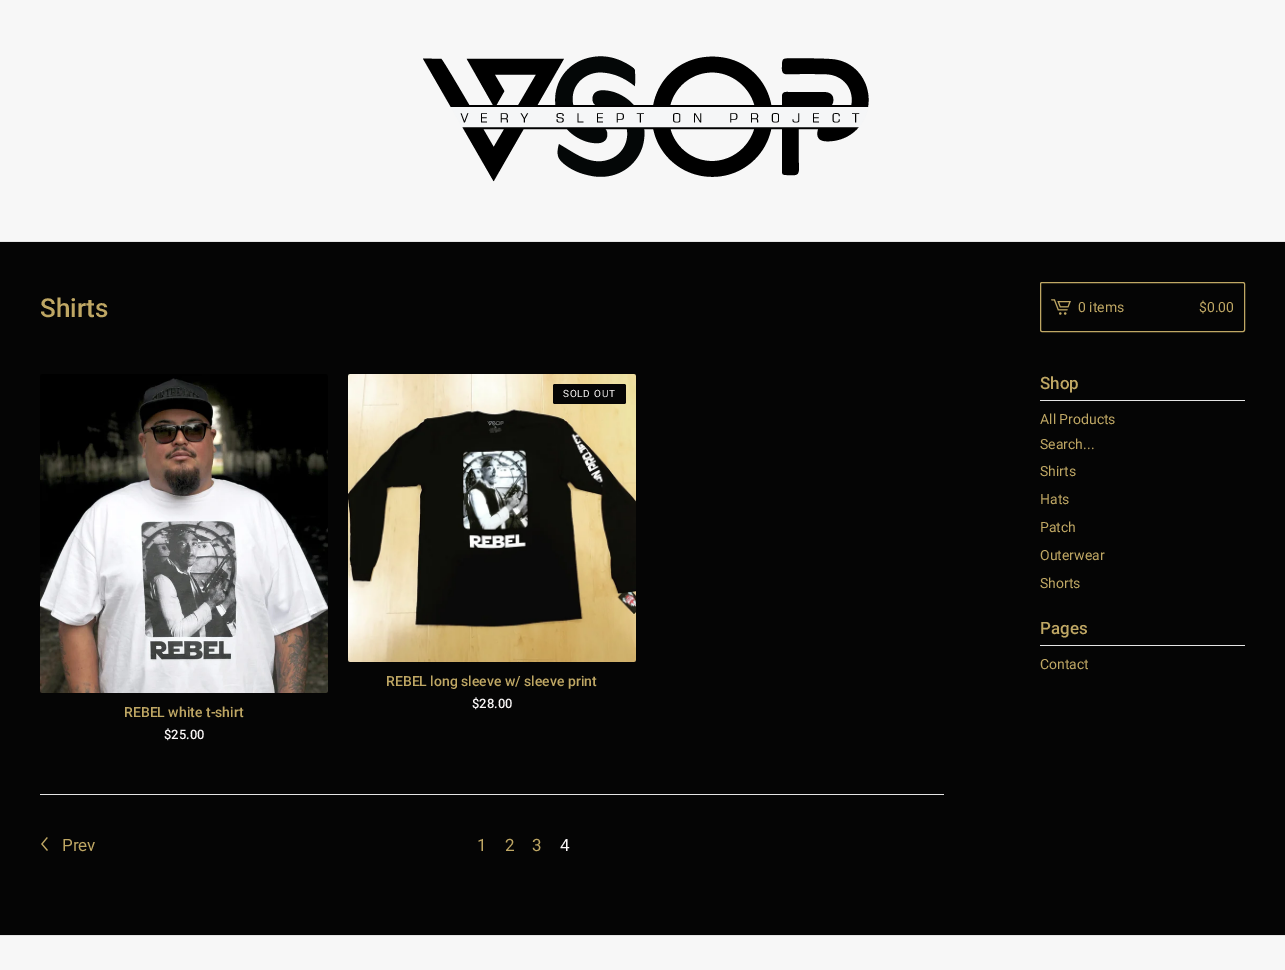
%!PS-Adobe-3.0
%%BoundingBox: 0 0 1285 970
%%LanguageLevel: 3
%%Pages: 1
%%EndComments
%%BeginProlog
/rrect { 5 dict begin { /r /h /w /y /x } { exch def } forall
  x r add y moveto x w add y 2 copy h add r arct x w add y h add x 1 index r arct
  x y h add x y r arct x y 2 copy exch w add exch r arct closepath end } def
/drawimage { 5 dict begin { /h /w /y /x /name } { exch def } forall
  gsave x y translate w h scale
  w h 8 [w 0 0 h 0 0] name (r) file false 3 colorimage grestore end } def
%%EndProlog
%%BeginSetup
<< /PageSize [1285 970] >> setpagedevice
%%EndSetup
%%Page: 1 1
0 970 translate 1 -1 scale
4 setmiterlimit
0.02 setgray
0 0 1285 970 rectfill
0.969 setgray
0 0 1285 241 rectfill
0.898 setgray
0 241 1285 1 rectfill
(images/1.raw) 423 56 446 126 drawimage
(images/2.raw) 348 374 288 288 drawimage
0.02 setgray
553 384 73 20 2 rrect fill
(images/3.raw) 40 374 288 319 drawimage
0.898 setgray
40 794 904 1 rectfill
(images/4.raw) 41 837 7 14 drawimage
0.749 0.655 0.392 setrgbcolor
1040.5 282.5 204 49 1.5 rrect stroke
(images/5.raw) 1051 299 20 16 drawimage
0.898 setgray
1040 400 205 1 rectfill
1040 645 205 1 rectfill
0.969 setgray
0 936 1285 34 rectfill
0.898 setgray
0 935 1285 1 rectfill
/Roboto-Medium [26 0 0 -26 0 0] selectfont
0.749 0.655 0.392 setrgbcolor
40 317 moveto (Shirts) show
/Roboto-Regular [10 0 0 -10 0 0] selectfont
0.98 0.969 0.969 setrgbcolor
563 397 moveto 0.75 0 (SOLD OUT) ashow
/Roboto-Medium [14 0 0 -14 0 0] selectfont
0.749 0.655 0.392 setrgbcolor
386 686 moveto (REBEL long sleeve w/ sleeve print) show
/Roboto-Medium [13 0 0 -13 0 0] selectfont
0.98 0.969 0.969 setrgbcolor
472 708 moveto ($28.00) show
/Roboto-Medium [14 0 0 -14 0 0] selectfont
0.749 0.655 0.392 setrgbcolor
124 717 moveto (REBEL white t-shirt) show
/Roboto-Medium [13 0 0 -13 0 0] selectfont
0.98 0.969 0.969 setrgbcolor
164 739 moveto ($25.00) show
/Roboto-Regular [17 0 0 -17 0 0] selectfont
0.749 0.655 0.392 setrgbcolor
62 851 moveto (Prev) show
477 851 moveto (1) show
505 851 moveto (2) show
532 851 moveto (3) show
0.98 0.969 0.969 setrgbcolor
560 851 moveto (4) show
/Roboto-Regular [14 0 0 -14 0 0] selectfont
0.749 0.655 0.392 setrgbcolor
1078 312 moveto (0 items) show
1199 312 moveto ($0.00) show
/Roboto-Medium [17 0 0 -17 0 0] selectfont
1040 389 moveto (Shop) show
/Roboto-Regular [14 0 0 -14 0 0] selectfont
1040 424 moveto (All Products) show
1040 449 moveto (Search...) show
1040 476 moveto (Shirts) show
1040 504 moveto (Hats) show
1040 532 moveto (Patch) show
1040 560 moveto (Outerwear) show
1040 588 moveto (Shorts) show
/Roboto-Medium [17 0 0 -17 0 0] selectfont
1040 634 moveto (Pages) show
/Roboto-Regular [14 0 0 -14 0 0] selectfont
1040 669 moveto (Contact) show
showpage
%%EOF
